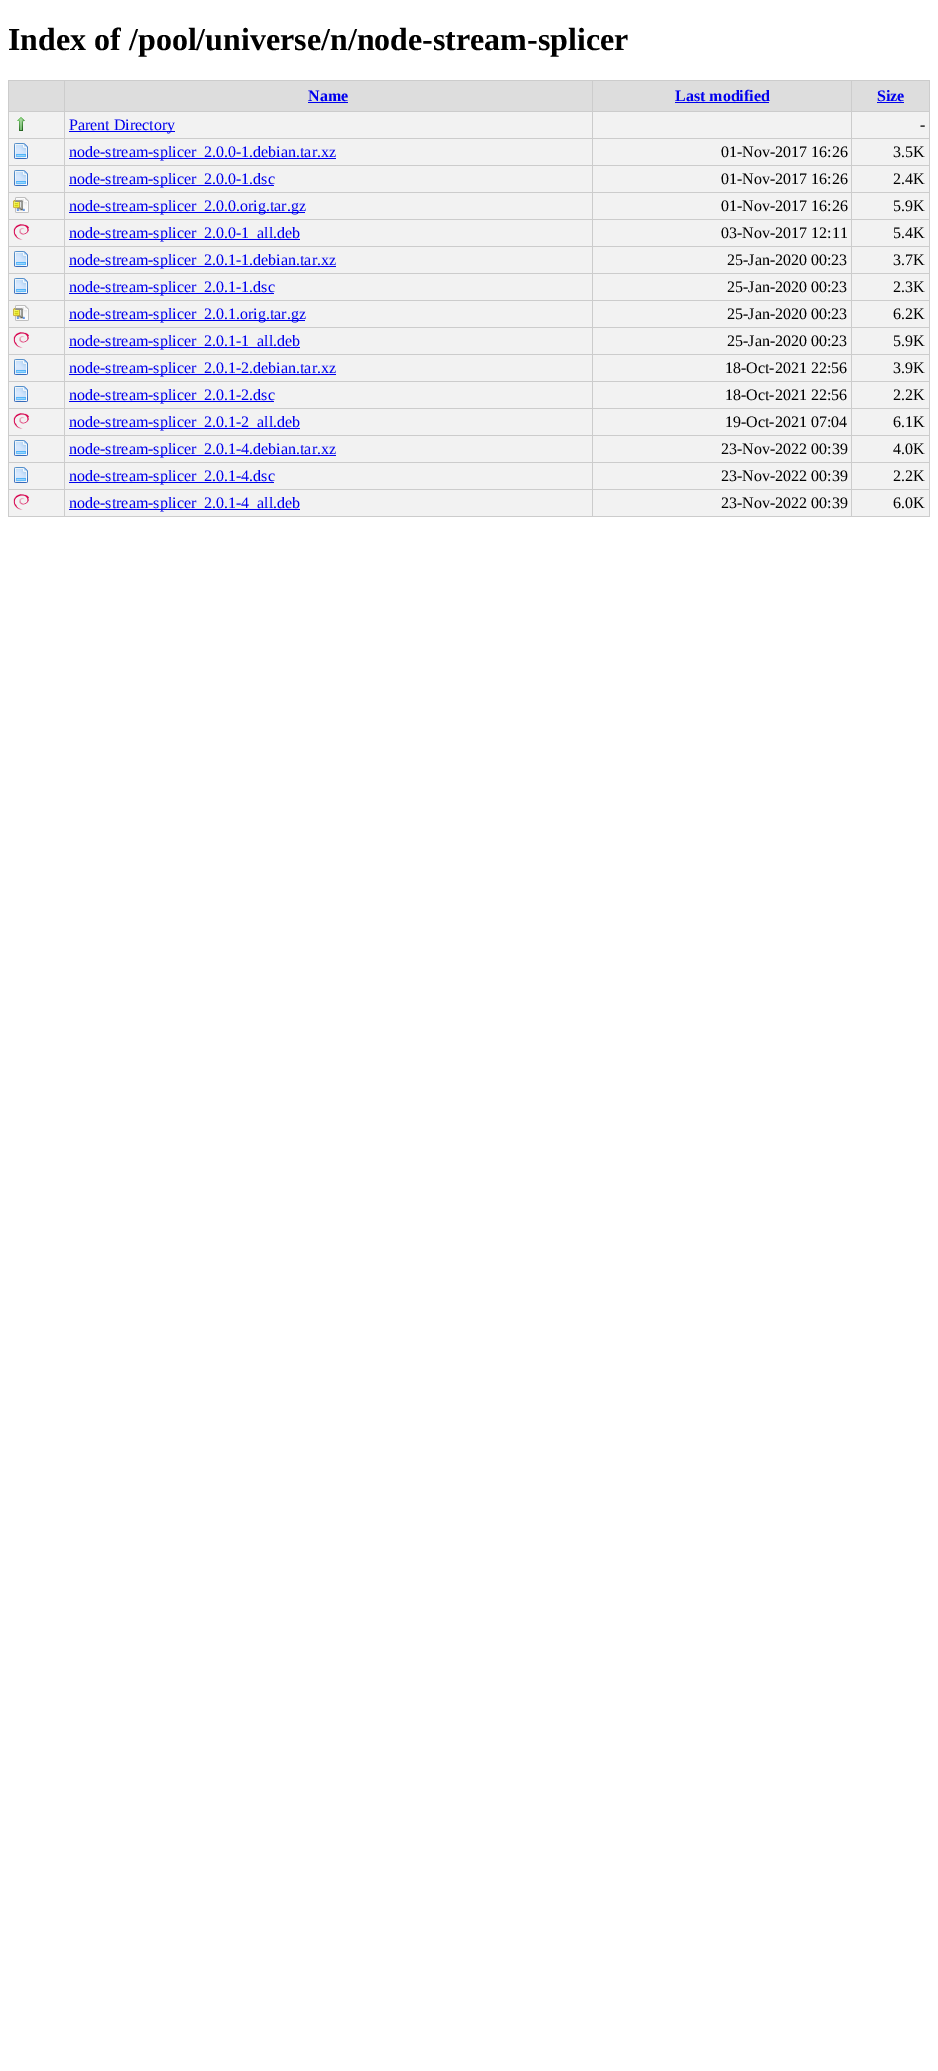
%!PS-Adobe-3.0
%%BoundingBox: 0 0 938 2071
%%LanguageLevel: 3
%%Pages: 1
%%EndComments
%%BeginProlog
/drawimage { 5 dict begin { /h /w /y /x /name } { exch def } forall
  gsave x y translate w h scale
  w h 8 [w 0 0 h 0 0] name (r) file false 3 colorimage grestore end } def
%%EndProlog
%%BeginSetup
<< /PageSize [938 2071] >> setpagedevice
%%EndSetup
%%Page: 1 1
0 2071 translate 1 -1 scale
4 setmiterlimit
1 setgray
0 0 938 2071 rectfill
0.867 setgray
9 81 55 30 rectfill
0.8 setgray
851 80 79 1 rectfill
851 111 79 1 rectfill
0.949 setgray
9 112 920 26 rectfill
0.8 setgray
851 138 79 1 rectfill
0.949 setgray
9 139 920 26 rectfill
0.8 setgray
851 165 79 1 rectfill
0.949 setgray
9 166 920 26 rectfill
0.8 setgray
851 192 79 1 rectfill
0.949 setgray
9 193 920 26 rectfill
0.8 setgray
851 219 79 1 rectfill
0.949 setgray
9 220 920 26 rectfill
0.8 setgray
851 246 79 1 rectfill
0.949 setgray
9 247 920 26 rectfill
0.8 setgray
851 273 79 1 rectfill
0.949 setgray
9 274 920 26 rectfill
0.8 setgray
851 300 79 1 rectfill
0.949 setgray
9 301 920 26 rectfill
0.8 setgray
851 327 79 1 rectfill
0.949 setgray
9 328 920 26 rectfill
0.8 setgray
851 354 79 1 rectfill
0.949 setgray
9 355 920 26 rectfill
0.8 setgray
851 381 79 1 rectfill
0.949 setgray
9 382 920 26 rectfill
0.8 setgray
851 408 79 1 rectfill
0.949 setgray
9 409 920 26 rectfill
0.8 setgray
851 435 79 1 rectfill
0.949 setgray
9 436 920 26 rectfill
0.8 setgray
851 462 79 1 rectfill
0.949 setgray
9 463 920 26 rectfill
0.8 setgray
851 489 79 1 rectfill
0.949 setgray
9 490 920 26 rectfill
0.8 setgray
929 489 1 28 rectfill
851 516 79 1 rectfill
851 489 1 28 rectfill
592 489 260 1 rectfill
851 462 1 28 rectfill
592 462 260 1 rectfill
851 435 1 28 rectfill
592 435 260 1 rectfill
851 408 1 28 rectfill
592 408 260 1 rectfill
851 381 1 28 rectfill
592 381 260 1 rectfill
851 354 1 28 rectfill
592 354 260 1 rectfill
851 327 1 28 rectfill
592 327 260 1 rectfill
851 300 1 28 rectfill
592 300 260 1 rectfill
851 273 1 28 rectfill
592 273 260 1 rectfill
851 246 1 28 rectfill
592 246 260 1 rectfill
851 219 1 28 rectfill
592 219 260 1 rectfill
851 192 1 28 rectfill
592 192 260 1 rectfill
851 165 1 28 rectfill
592 165 260 1 rectfill
851 138 1 28 rectfill
592 138 260 1 rectfill
851 111 1 28 rectfill
592 111 260 1 rectfill
851 80 1 32 rectfill
592 80 260 1 rectfill
592 516 260 1 rectfill
592 489 1 28 rectfill
64 489 529 1 rectfill
592 462 1 28 rectfill
64 462 529 1 rectfill
592 435 1 28 rectfill
64 435 529 1 rectfill
592 408 1 28 rectfill
64 408 529 1 rectfill
592 381 1 28 rectfill
64 381 529 1 rectfill
592 354 1 28 rectfill
64 354 529 1 rectfill
592 327 1 28 rectfill
64 327 529 1 rectfill
592 300 1 28 rectfill
64 300 529 1 rectfill
592 273 1 28 rectfill
64 273 529 1 rectfill
592 246 1 28 rectfill
64 246 529 1 rectfill
592 219 1 28 rectfill
64 219 529 1 rectfill
592 192 1 28 rectfill
64 192 529 1 rectfill
592 165 1 28 rectfill
64 165 529 1 rectfill
592 138 1 28 rectfill
64 138 529 1 rectfill
592 111 1 28 rectfill
64 111 529 1 rectfill
592 80 1 32 rectfill
64 80 529 1 rectfill
64 516 529 1 rectfill
64 489 1 28 rectfill
8 489 57 1 rectfill
64 462 1 28 rectfill
8 462 57 1 rectfill
64 435 1 28 rectfill
8 435 57 1 rectfill
64 408 1 28 rectfill
8 408 57 1 rectfill
64 381 1 28 rectfill
8 381 57 1 rectfill
64 354 1 28 rectfill
8 354 57 1 rectfill
64 327 1 28 rectfill
8 327 57 1 rectfill
64 300 1 28 rectfill
8 300 57 1 rectfill
64 273 1 28 rectfill
8 273 57 1 rectfill
64 246 1 28 rectfill
8 246 57 1 rectfill
64 219 1 28 rectfill
8 219 57 1 rectfill
64 192 1 28 rectfill
8 192 57 1 rectfill
64 165 1 28 rectfill
8 165 57 1 rectfill
64 138 1 28 rectfill
8 138 57 1 rectfill
64 111 1 28 rectfill
8 111 57 1 rectfill
64 80 1 32 rectfill
8 80 57 1 rectfill
8 516 57 1 rectfill
8 489 1 28 rectfill
8 462 1 28 rectfill
8 435 1 28 rectfill
8 408 1 28 rectfill
8 381 1 28 rectfill
8 354 1 28 rectfill
8 327 1 28 rectfill
8 300 1 28 rectfill
8 273 1 28 rectfill
8 246 1 28 rectfill
8 219 1 28 rectfill
8 192 1 28 rectfill
8 165 1 28 rectfill
8 138 1 28 rectfill
8 111 1 28 rectfill
8 80 1 32 rectfill
0.867 setgray
65 81 527 30 rectfill
0 0 0.933 setrgbcolor
308 102 40 1 rectfill
0.867 setgray
593 81 258 30 rectfill
0 0 0.933 setrgbcolor
675 102 94 1 rectfill
0.867 setgray
852 81 77 30 rectfill
0.8 setgray
929 462 1 28 rectfill
929 435 1 28 rectfill
929 408 1 28 rectfill
929 381 1 28 rectfill
929 354 1 28 rectfill
929 327 1 28 rectfill
929 300 1 28 rectfill
929 273 1 28 rectfill
929 246 1 28 rectfill
929 219 1 28 rectfill
929 192 1 28 rectfill
929 165 1 28 rectfill
929 138 1 28 rectfill
929 111 1 28 rectfill
929 80 1 32 rectfill
0 0 0.933 setrgbcolor
877 102 27 1 rectfill
(images/1.raw) 17 117 8 14 drawimage
69 131 106 1 rectfill
(images/2.raw) 14 143 14 16 drawimage
69 158 267 1 rectfill
(images/2.raw) 14 170 14 16 drawimage
69 185 205 1 rectfill
(images/3.raw) 13 197 16 16 drawimage
69 212 236 1 rectfill
(images/4.raw) 13 224 16 16 drawimage
69 239 231 1 rectfill
(images/2.raw) 14 251 14 16 drawimage
69 266 267 1 rectfill
(images/2.raw) 14 278 14 16 drawimage
69 293 205 1 rectfill
(images/3.raw) 13 305 16 16 drawimage
69 320 236 1 rectfill
(images/4.raw) 13 332 16 16 drawimage
69 347 231 1 rectfill
(images/2.raw) 14 359 14 16 drawimage
69 374 267 1 rectfill
(images/2.raw) 14 386 14 16 drawimage
69 401 205 1 rectfill
(images/4.raw) 13 413 16 16 drawimage
69 428 231 1 rectfill
(images/2.raw) 14 440 14 16 drawimage
69 455 267 1 rectfill
(images/2.raw) 14 467 14 16 drawimage
69 482 205 1 rectfill
(images/4.raw) 13 494 16 16 drawimage
69 509 231 1 rectfill
/LiberationSerif-Bold [32 0 0 -32 0 0] selectfont
0 setgray
8 50 moveto (Index of /pool/universe/n/node-stream-splicer) show
/LiberationSerif-Bold [16 0 0 -16 0 0] selectfont
0 0 0.933 setrgbcolor
308 101 moveto (Name) show
675 101 moveto (Last modified) show
877 101 moveto (Size) show
/LiberationSerif-Regular [16 0 0 -16 0 0] selectfont
69 130 moveto (Parent Directory) show
0 setgray
920 130 moveto (-) show
0 0 0.933 setrgbcolor
69 157 moveto (node-stream-splicer_2.0.0-1.debian.tar.xz) show
0 setgray
721 157 moveto (01-Nov-2017 16:26) show
893 157 moveto (3.5K) show
0 0 0.933 setrgbcolor
69 184 moveto (node-stream-splicer_2.0.0-1.dsc) show
0 setgray
721 184 moveto (01-Nov-2017 16:26) show
893 184 moveto (2.4K) show
0 0 0.933 setrgbcolor
69 211 moveto (node-stream-splicer_2.0.0.orig.tar.gz) show
0 setgray
721 211 moveto (01-Nov-2017 16:26) show
893 211 moveto (5.9K) show
0 0 0.933 setrgbcolor
69 238 moveto (node-stream-splicer_2.0.0-1_all.deb) show
0 setgray
721 238 moveto (03-Nov-2017 12:11) show
893 238 moveto (5.4K) show
0 0 0.933 setrgbcolor
69 265 moveto (node-stream-splicer_2.0.1-1.debian.tar.xz) show
0 setgray
727 265 moveto (25-Jan-2020 00:23) show
893 265 moveto (3.7K) show
0 0 0.933 setrgbcolor
69 292 moveto (node-stream-splicer_2.0.1-1.dsc) show
0 setgray
727 292 moveto (25-Jan-2020 00:23) show
893 292 moveto (2.3K) show
0 0 0.933 setrgbcolor
69 319 moveto (node-stream-splicer_2.0.1.orig.tar.gz) show
0 setgray
727 319 moveto (25-Jan-2020 00:23) show
893 319 moveto (6.2K) show
0 0 0.933 setrgbcolor
69 346 moveto (node-stream-splicer_2.0.1-1_all.deb) show
0 setgray
727 346 moveto (25-Jan-2020 00:23) show
893 346 moveto (5.9K) show
0 0 0.933 setrgbcolor
69 373 moveto (node-stream-splicer_2.0.1-2.debian.tar.xz) show
0 setgray
725 373 moveto (18-Oct-2021 22:56) show
893 373 moveto (3.9K) show
0 0 0.933 setrgbcolor
69 400 moveto (node-stream-splicer_2.0.1-2.dsc) show
0 setgray
725 400 moveto (18-Oct-2021 22:56) show
893 400 moveto (2.2K) show
0 0 0.933 setrgbcolor
69 427 moveto (node-stream-splicer_2.0.1-2_all.deb) show
0 setgray
725 427 moveto (19-Oct-2021 07:04) show
893 427 moveto (6.1K) show
0 0 0.933 setrgbcolor
69 454 moveto (node-stream-splicer_2.0.1-4.debian.tar.xz) show
0 setgray
721 454 moveto (23-Nov-2022 00:39) show
893 454 moveto (4.0K) show
0 0 0.933 setrgbcolor
69 481 moveto (node-stream-splicer_2.0.1-4.dsc) show
0 setgray
721 481 moveto (23-Nov-2022 00:39) show
893 481 moveto (2.2K) show
0 0 0.933 setrgbcolor
69 508 moveto (node-stream-splicer_2.0.1-4_all.deb) show
0 setgray
721 508 moveto (23-Nov-2022 00:39) show
893 508 moveto (6.0K) show
showpage
%%EOF
